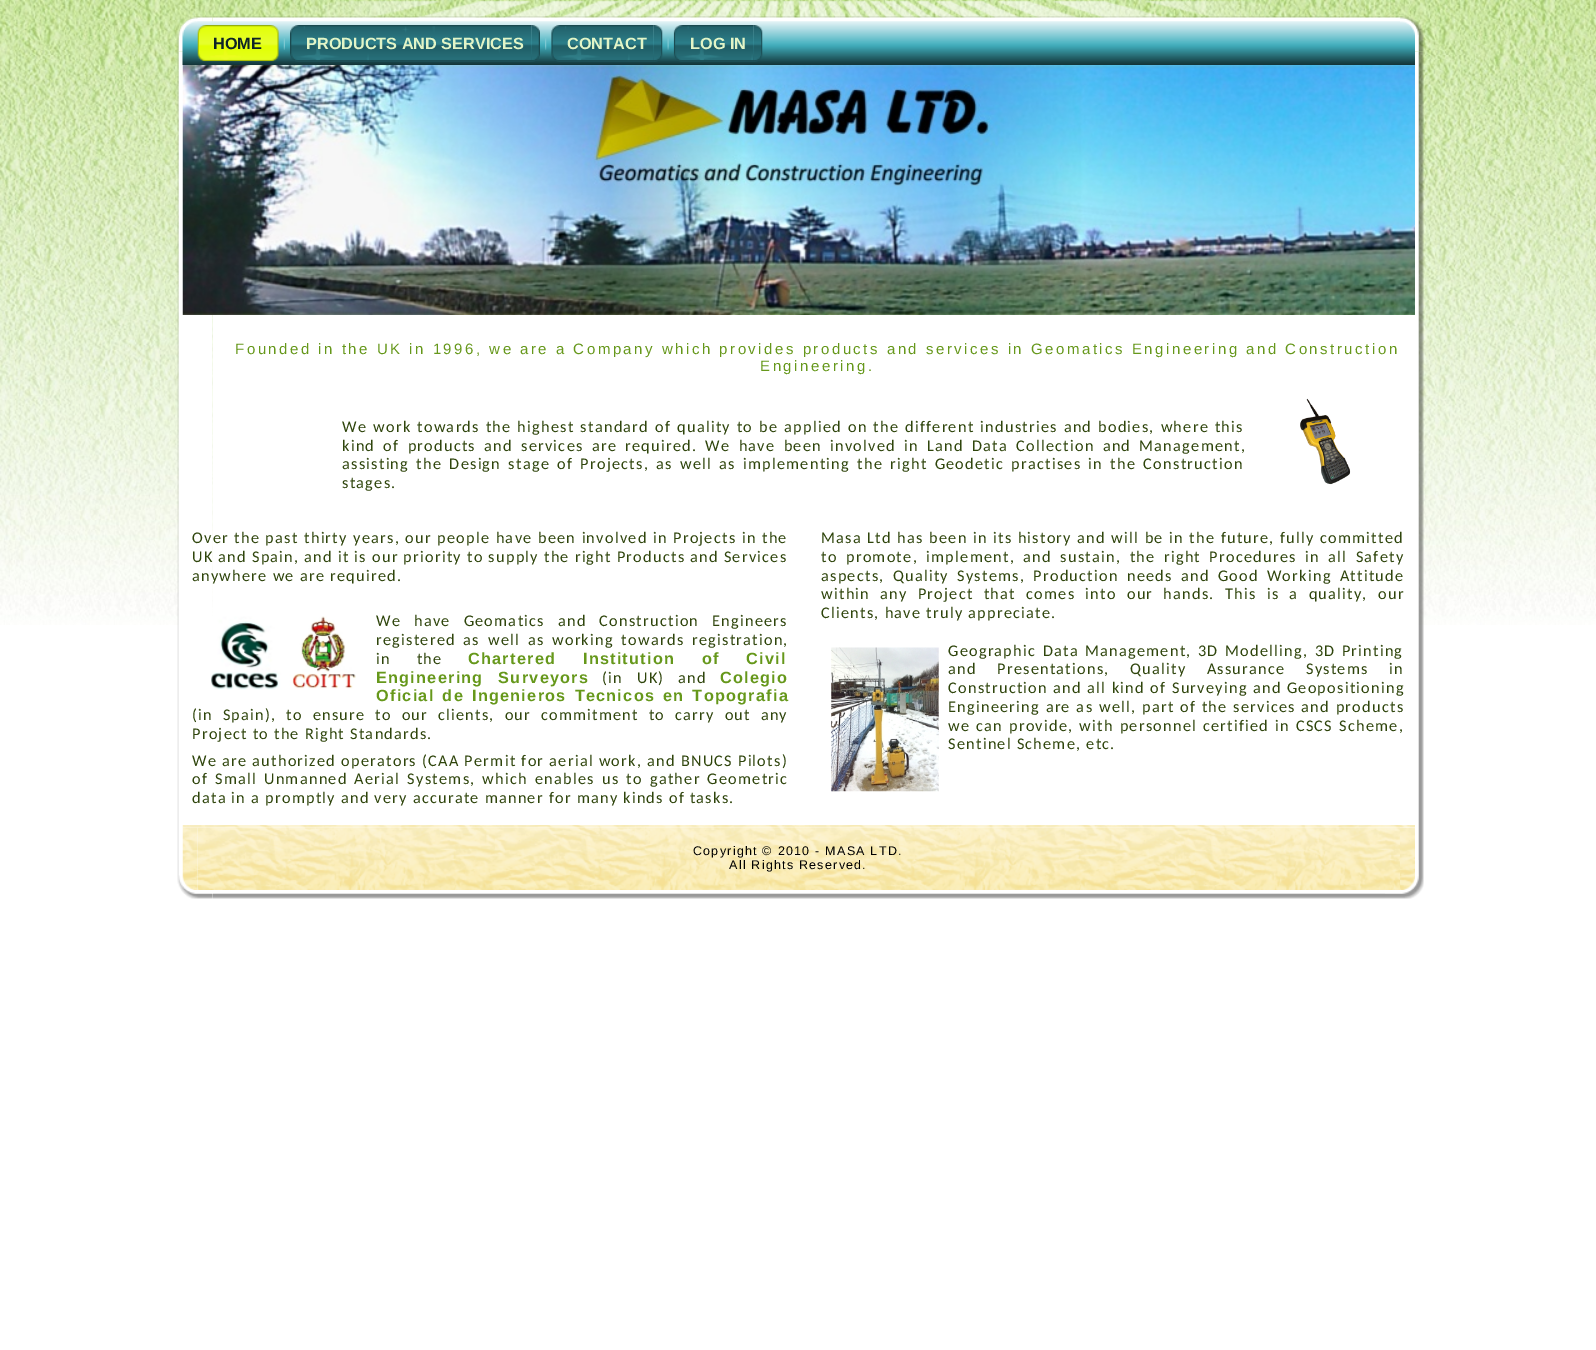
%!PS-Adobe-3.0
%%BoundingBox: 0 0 1596 1350
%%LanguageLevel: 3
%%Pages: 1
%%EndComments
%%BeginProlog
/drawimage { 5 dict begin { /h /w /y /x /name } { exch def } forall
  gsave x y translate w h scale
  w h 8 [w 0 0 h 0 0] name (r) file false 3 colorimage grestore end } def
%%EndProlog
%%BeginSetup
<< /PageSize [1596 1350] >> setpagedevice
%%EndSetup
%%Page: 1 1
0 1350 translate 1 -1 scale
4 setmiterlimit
1 setgray
0 0 1596 1350 rectfill
(images/1.raw) 0 0 1596 625 drawimage
(images/2.raw) 281 1 1011 17 drawimage
(images/3.raw) 177 16 36 36 drawimage
(images/4.raw) 212 16 1173 6 drawimage
(images/5.raw) 1385 16 39 36 drawimage
(images/26.raw) 177 51 36 809 drawimage
(images/27.raw) 1385 51 39 809 drawimage
(images/6.raw) 182 21 1218 44 drawimage
(images/7.raw) 1400 21 15 44 drawimage
(images/8.raw) 197 25 73 37 drawimage
(images/9.raw) 270 25 9 37 drawimage
(images/10.raw) 283 38 2 12 drawimage
(images/11.raw) 290 25 242 37 drawimage
(images/12.raw) 531 25 9 37 drawimage
(images/13.raw) 545 38 2 12 drawimage
(images/14.raw) 551 25 103 37 drawimage
(images/15.raw) 653 25 10 37 drawimage
(images/16.raw) 667 38 2 12 drawimage
(images/17.raw) 673 25 81 37 drawimage
(images/15.raw) 753 25 10 37 drawimage
(images/18.raw) 182 65 1233 250 drawimage
213 315 1172 310 rectfill
(images/19.raw) 1300 398 51 87 drawimage
(images/20.raw) 211 616 145 74 drawimage
(images/21.raw) 831 647 108 145 drawimage
(images/22.raw) 182 825 1233 3 drawimage
(images/28.raw) 177 860 36 39 drawimage
(images/23.raw) 182 827 16 63 drawimage
(images/30.raw) 1385 860 39 39 drawimage
(images/24.raw) 197 827 1203 63 drawimage
(images/25.raw) 1400 827 15 63 drawimage
(images/29.raw) 212 893 1173 6 drawimage
/LiberationSans-Bold [16.25 0 0 -16.25 0 0] selectfont
0.051 0.137 0.149 setrgbcolor
213 49 moveto (HOME) show
0.886 0.961 0.78 setrgbcolor
306 49 moveto (PRODUCTS AND SERVICES) show
567 49 moveto (CONTACT) show
690 49 moveto (LOG IN) show
/LiberationSans-Regular [15 0 0 -15 0 0] selectfont
0.4 0.596 0.106 setrgbcolor
235 354 moveto 2.5 0 (Founded in the UK in 1996, we are a Company which provides products and services in Geomatics Engineering and Construction) ashow
760 371 moveto 2.5 0 (Engineering.) ashow
/Carlito-Regular [16.25 0 0 -16.25 0 0] selectfont
0.184 0.271 0.047 setrgbcolor
342 432 moveto 1 0 32 1.25 0 (We work towards the highest standard of quality to be applied on the different industries and bodies, where this) awidthshow
342 451 moveto 3.25 0 32 1.25 0 (kind of products and services are required. We have been involved in Land Data Collection and Management,) awidthshow
342 469 moveto 2.25 0 32 1.25 0 (assisting the Design stage of Projects, as well as implementing the right Geodetic practises in the Construction) awidthshow
342 488 moveto 1.25 0 (stages.) ashow
192 543 moveto 0.5 0 32 1.25 0 (Over the past thirty years, our people have been involved in Projects in the) awidthshow
192 562 moveto 1.25 0 (UK and Spain, and it is our priority to supply the right Products and Services) ashow
192 581 moveto 1.25 0 (anywhere we are required.) ashow
376 626 moveto 8 0 32 1.25 0 (We have Geomatics and Construction Engineers) awidthshow
376 645 moveto 2.75 0 32 1.25 0 (registered as well as working towards registration,) awidthshow
376 664 moveto 21 0 32 1.25 0 (in the) awidthshow
/LiberationSans-Bold [16.25 0 0 -16.25 0 0] selectfont
0.4 0.596 0.106 setrgbcolor
468 664 moveto 21 0 32 1.25 0 (Chartered Institution of Civil) awidthshow
376 683 moveto 9 0 32 1.25 0 (Engineering Surveyors) awidthshow
/Carlito-Regular [16.25 0 0 -16.25 0 0] selectfont
0.184 0.271 0.047 setrgbcolor
602 683 moveto 9 0 32 1.25 0 (\(in UK\) and) awidthshow
/LiberationSans-Bold [16.25 0 0 -16.25 0 0] selectfont
0.4 0.596 0.106 setrgbcolor
720 683 moveto 1.25 0 (Colegio) ashow
376 701 moveto 2.25 0 32 1.25 0 (Oficial de Ingenieros Tecnicos en Topografia) awidthshow
/Carlito-Regular [16.25 0 0 -16.25 0 0] selectfont
0.184 0.271 0.047 setrgbcolor
192 720 moveto 4.9 0 32 1.25 0 (\(in Spain\), to ensure to our clients, our commitment to carry out any) awidthshow
192 739 moveto 1.25 0 (Project to the Right Standards.) ashow
192 766 moveto 0.1 0 32 1.25 0 (We are authorized operators \(CAA Permit for aerial work, and BNUCS Pilots\)) awidthshow
192 784 moveto 2.1 0 32 1.25 0 (of Small Unmanned Aerial Systems, which enables us to gather Geometric) awidthshow
192 803 moveto 1.25 0 (data in a promptly and very accurate manner for many kinds of tasks.) ashow
821 543 moveto 0.5 0 32 1.25 0 (Masa Ltd has been in its history and will be in the future, fully committed) awidthshow
821 562 moveto 3.5 0 32 1.25 0 (to promote, implement, and sustain, the right Procedures in all Safety) awidthshow
821 581 moveto 3.25 0 32 1.25 0 (aspects, Quality Systems, Production needs and Good Working Attitude) awidthshow
821 599 moveto 5.25 0 32 1.25 0 (within any Project that comes into our hands. This is a quality, our) awidthshow
821 618 moveto 1.25 0 (Clients, have truly appreciate.) ashow
948 656 moveto 1.5 0 32 1.25 0 (Geographic Data Management, 3D Modelling, 3D Printing) awidthshow
948 674 moveto 15.5 0 32 1.25 0 (and Presentations, Quality Assurance Systems in) awidthshow
948 693 moveto 0.5 0 32 1.25 0 (Construction and all kind of Surveying and Geopositioning) awidthshow
948 712 moveto 0.75 0 32 1.25 0 (Engineering are as well, part of the services and products) awidthshow
948 731 moveto 1 0 32 1.25 0 (we can provide, with personnel certified in CSCS Scheme,) awidthshow
948 749 moveto 1.25 0 (Sentinel Scheme, etc.) ashow
/LiberationSans-Regular [12.5 0 0 -12.5 0 0] selectfont
0 setgray
693 855 moveto 1.25 0 (Copyright © 2010 - MASA LTD.) ashow
729 869 moveto 1.25 0 (All Rights Reserved.) ashow
showpage
%%EOF
